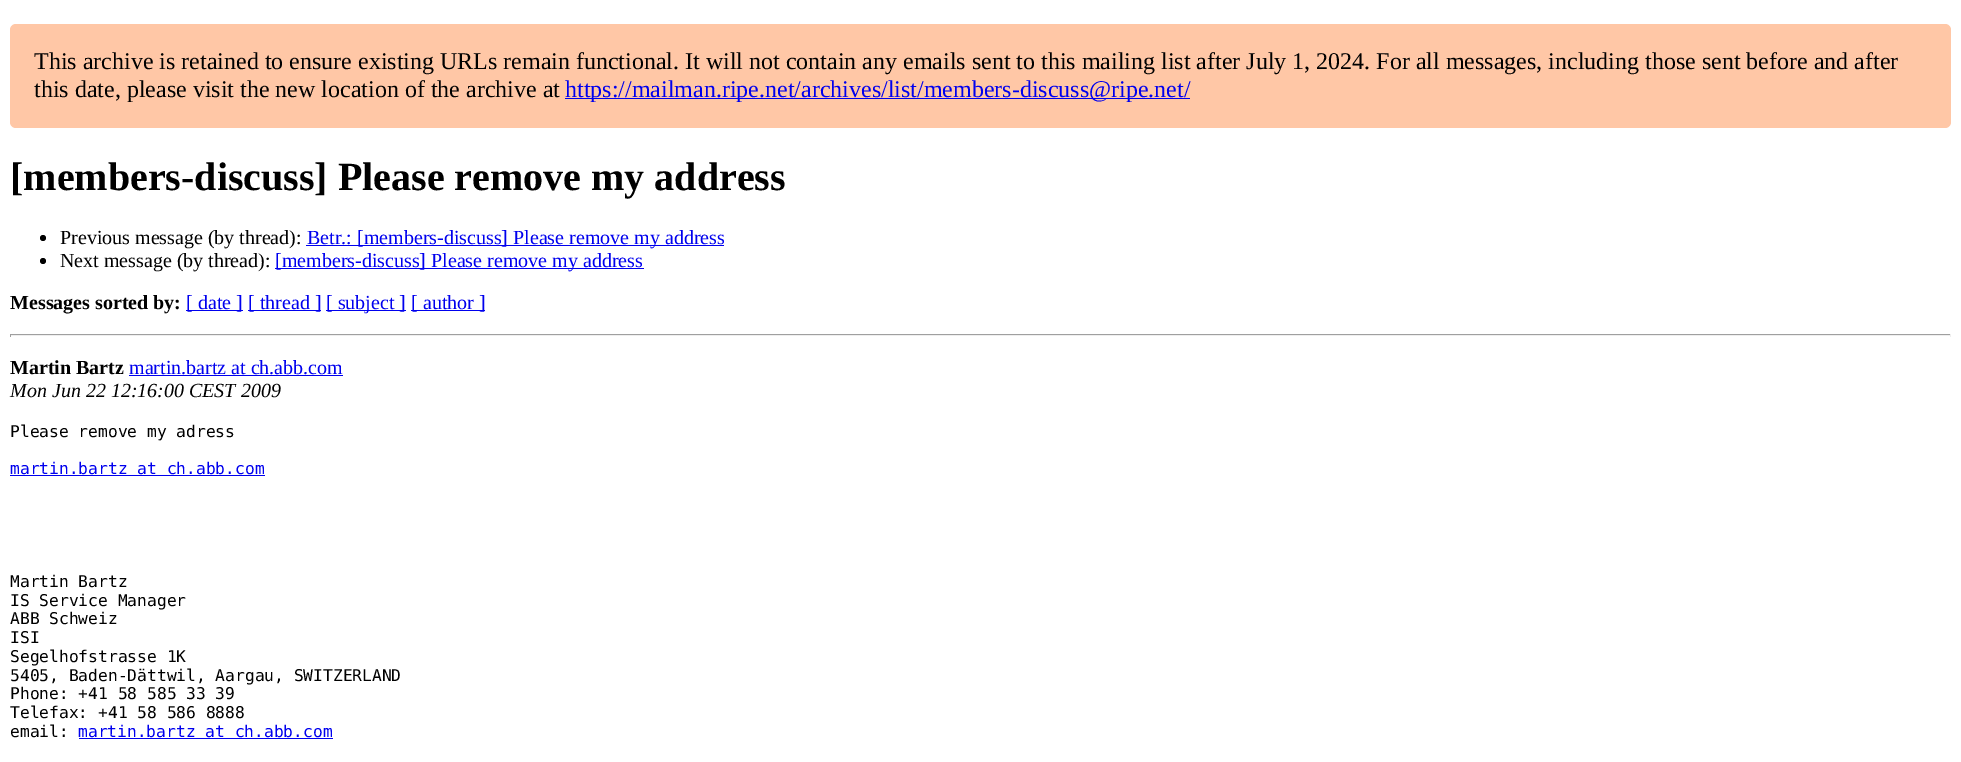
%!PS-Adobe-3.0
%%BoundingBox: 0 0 1961 762
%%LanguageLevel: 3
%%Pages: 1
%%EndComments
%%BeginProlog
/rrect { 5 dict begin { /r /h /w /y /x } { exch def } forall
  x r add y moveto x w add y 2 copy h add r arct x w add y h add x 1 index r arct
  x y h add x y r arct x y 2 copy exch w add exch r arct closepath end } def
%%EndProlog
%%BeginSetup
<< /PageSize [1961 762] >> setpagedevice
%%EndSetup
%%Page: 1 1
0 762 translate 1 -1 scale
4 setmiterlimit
1 setgray
0 0 1961 762 rectfill
1 0.78 0.651 setrgbcolor
10 24 1941 104 6 rrect fill
0 0 0.933 setrgbcolor
565 98 625 1 rectfill
0 setgray
newpath 43 238 3 0 360 arc closepath fill
0 0 0.933 setrgbcolor
306 245 418 1 rectfill
0 setgray
newpath 43 261 3 0 360 arc closepath fill
0 0 0.933 setrgbcolor
275 268 369 1 rectfill
186 310 57 1 rectfill
248 310 73 1 rectfill
326 310 80 1 rectfill
411 310 74 1 rectfill
0.624 setgray
10 334 1941 1 rectfill
0.933 setgray
1950 334 1 3 rectfill
10 335 1941 1 rectfill
0.624 setgray
10 334 1 3 rectfill
0 0 0.933 setrgbcolor
129 375 214 1 rectfill
10 475 255 1 rectfill
79 738 254 1 rectfill
/LiberationSerif-Regular [24 0 0 -24 0 0] selectfont
0 setgray
34 69 moveto (This archive is retained to ensure existing URLs remain functional. It will not contain any emails sent to this mailing list after July 1, 2024. For all messages, including those sent before and after) show
34 97 moveto (this date, please visit the new location of the archive at) show
0 0 0.933 setrgbcolor
565 97 moveto (https://mailman.ripe.net/archives/list/members-discuss@ripe.net/) show
/LiberationSerif-Bold [40 0 0 -40 0 0] selectfont
0 setgray
10 190 moveto ([members-discuss] Please remove my address) show
/LiberationSerif-Regular [20 0 0 -20 0 0] selectfont
60 244 moveto (Previous message \(by thread\):) show
0 0 0.933 setrgbcolor
307 244 moveto (Betr.: [members-discuss] Please remove my address) show
0 setgray
60 267 moveto (Next message \(by thread\):) show
0 0 0.933 setrgbcolor
275 267 moveto ([members-discuss] Please remove my address) show
/LiberationSerif-Bold [20 0 0 -20 0 0] selectfont
0 setgray
10 309 moveto (Messages sorted by:) show
/LiberationSerif-Regular [20 0 0 -20 0 0] selectfont
0 0 0.933 setrgbcolor
186 309 moveto ([ date ]) show
248 309 moveto ([ thread ]) show
326 309 moveto ([ subject ]) show
411 309 moveto ([ author ]) show
/LiberationSerif-Bold [20 0 0 -20 0 0] selectfont
0 setgray
10 374 moveto (Martin Bartz) show
/LiberationSerif-Regular [20 0 0 -20 0 0] selectfont
0 0 0.933 setrgbcolor
129 374 moveto (martin.bartz at ch.abb.com) show
/LiberationSerif-Italic [20 0 0 -20 0 0] selectfont
0 setgray
10 397 moveto (Mon Jun 22 12:16:00 CEST 2009) show
/DejaVuSansMono-Regular [16.25 0 0 -16.25 0 0] selectfont
10 437 moveto (Please remove my adress) show
0 0 0.933 setrgbcolor
10 474 moveto (martin.bartz at ch.abb.com) show
0 setgray
10 587 moveto (Martin Bartz) show
10 606 moveto (IS Service Manager) show
10 624 moveto (ABB Schweiz) show
10 643 moveto (ISI) show
10 662 moveto (Segelhofstrasse 1K) show
10 681 moveto (5405, Baden-Dättwil, Aargau, SWITZERLAND) show
10 699 moveto (Phone: +41 58 585 33 39) show
10 718 moveto (Telefax: +41 58 586 8888) show
10 737 moveto (email:) show
0 0 0.933 setrgbcolor
78 737 moveto (martin.bartz at ch.abb.com) show
showpage
%%EOF
